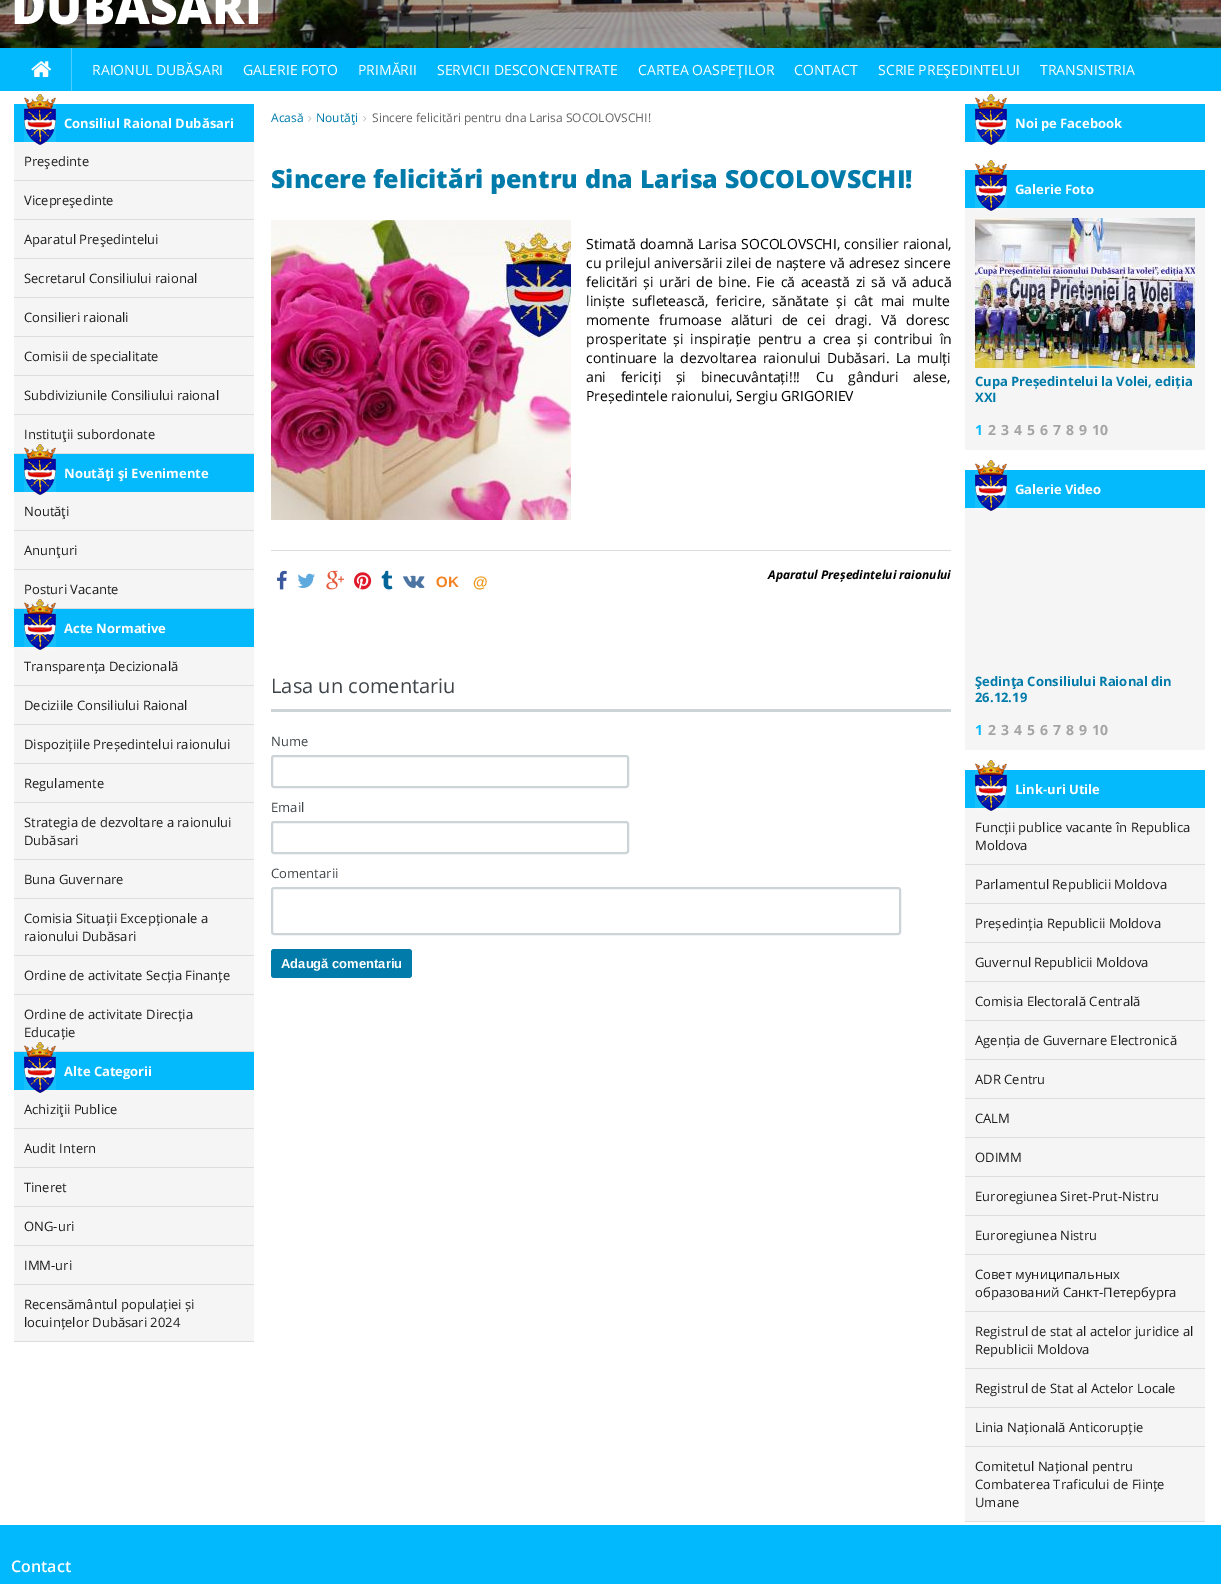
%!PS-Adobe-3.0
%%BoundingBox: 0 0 1221 1584
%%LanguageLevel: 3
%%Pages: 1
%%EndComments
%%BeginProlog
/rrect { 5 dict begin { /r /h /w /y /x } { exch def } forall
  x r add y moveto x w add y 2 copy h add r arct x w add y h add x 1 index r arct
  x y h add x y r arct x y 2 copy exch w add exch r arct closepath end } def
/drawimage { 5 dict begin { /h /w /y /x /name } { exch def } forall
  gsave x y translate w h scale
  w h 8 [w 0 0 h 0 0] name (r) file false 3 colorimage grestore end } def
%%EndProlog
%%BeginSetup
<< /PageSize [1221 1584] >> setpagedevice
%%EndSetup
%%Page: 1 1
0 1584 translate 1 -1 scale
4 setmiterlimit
1 setgray
0 0 1221 1584 rectfill
(images/1.raw) 0 0 1221 48 drawimage
0.008 0.725 0.992 setrgbcolor
0 48 1221 43 rectfill
0.306 0.808 0.996 setrgbcolor
71 48 1 43 rectfill
(images/2.raw) 31 61 21 16 drawimage
0.016 0.729 0.992 setrgbcolor
14 104 240 38 rectfill
0.961 setgray
14 142 240 38 rectfill
(images/3.raw) 24 94 32 51 drawimage
0.867 setgray
14 180 240 1 rectfill
0.961 setgray
14 181 240 38 rectfill
0.867 setgray
14 219 240 1 rectfill
0.961 setgray
14 220 240 38 rectfill
0.867 setgray
14 258 240 1 rectfill
0.961 setgray
14 259 240 38 rectfill
0.867 setgray
14 297 240 1 rectfill
0.961 setgray
14 298 240 38 rectfill
0.867 setgray
14 336 240 1 rectfill
0.961 setgray
14 337 240 38 rectfill
0.867 setgray
14 375 240 1 rectfill
0.961 setgray
14 376 240 38 rectfill
0.867 setgray
14 414 240 1 rectfill
0.961 setgray
14 415 240 38 rectfill
0.867 setgray
14 453 240 1 rectfill
0.016 0.729 0.992 setrgbcolor
14 454 240 38 rectfill
0.961 setgray
14 492 240 38 rectfill
(images/4.raw) 24 444 32 51 drawimage
0.867 setgray
14 530 240 1 rectfill
0.961 setgray
14 531 240 38 rectfill
0.867 setgray
14 569 240 1 rectfill
0.961 setgray
14 570 240 38 rectfill
0.867 setgray
14 608 240 1 rectfill
0.016 0.729 0.992 setrgbcolor
14 609 240 38 rectfill
0.961 setgray
14 647 240 38 rectfill
(images/4.raw) 24 599 32 51 drawimage
0.867 setgray
14 685 240 1 rectfill
0.961 setgray
14 686 240 38 rectfill
0.867 setgray
14 724 240 1 rectfill
0.961 setgray
14 725 240 38 rectfill
0.867 setgray
14 763 240 1 rectfill
0.961 setgray
14 764 240 38 rectfill
0.867 setgray
14 802 240 1 rectfill
0.961 setgray
14 803 240 56 rectfill
0.867 setgray
14 859 240 1 rectfill
0.961 setgray
14 860 240 38 rectfill
0.867 setgray
14 898 240 1 rectfill
0.961 setgray
14 899 240 56 rectfill
0.867 setgray
14 955 240 1 rectfill
0.961 setgray
14 956 240 38 rectfill
0.867 setgray
14 994 240 1 rectfill
0.961 setgray
14 995 240 56 rectfill
0.867 setgray
14 1051 240 1 rectfill
0.016 0.729 0.992 setrgbcolor
14 1052 240 38 rectfill
0.961 setgray
14 1090 240 38 rectfill
(images/4.raw) 24 1042 32 51 drawimage
0.867 setgray
14 1128 240 1 rectfill
0.961 setgray
14 1129 240 38 rectfill
0.867 setgray
14 1167 240 1 rectfill
0.961 setgray
14 1168 240 38 rectfill
0.867 setgray
14 1206 240 1 rectfill
0.961 setgray
14 1207 240 38 rectfill
0.867 setgray
14 1245 240 1 rectfill
0.961 setgray
14 1246 240 38 rectfill
0.867 setgray
14 1284 240 1 rectfill
0.961 setgray
14 1285 240 56 rectfill
0.867 setgray
14 1341 240 1 rectfill
(images/5.raw) 308 116 4 6 drawimage
(images/5.raw) 363 116 4 6 drawimage
(images/6.raw) 271 220 300 300 drawimage
271 550 680 1 rectfill
(images/7.raw) 277 570 10 20 drawimage
(images/8.raw) 297 573 18 15 drawimage
(images/9.raw) 326 570 18 20 drawimage
(images/10.raw) 354 572 18 18 drawimage
(images/11.raw) 381 570 12 20 drawimage
(images/12.raw) 403 575 22 13 drawimage
0.8 0.831 0.847 setrgbcolor
271 709 680 3 rectfill
2 setlinewidth
272 756 356 31 2 rrect stroke
272 822 356 31 2 rrect stroke
272 888 628 46 2 rrect stroke
0 0.482 0.667 setrgbcolor
271 949 141 29 3 rrect fill
0.016 0.729 0.992 setrgbcolor
965 104 240 38 rectfill
(images/13.raw) 975 94 32 51 drawimage
965 170 240 38 rectfill
0.961 setgray
965 208 240 242 rectfill
(images/3.raw) 975 160 32 51 drawimage
(images/14.raw) 975 218 220 150 drawimage
0.016 0.729 0.992 setrgbcolor
965 470 240 38 rectfill
0.961 setgray
965 508 240 242 rectfill
(images/3.raw) 975 460 32 51 drawimage
0.016 0.729 0.992 setrgbcolor
965 770 240 38 rectfill
0.961 setgray
965 808 240 56 rectfill
(images/3.raw) 975 760 32 51 drawimage
0.867 setgray
965 864 240 1 rectfill
0.961 setgray
965 865 240 38 rectfill
0.867 setgray
965 903 240 1 rectfill
0.961 setgray
965 904 240 38 rectfill
0.867 setgray
965 942 240 1 rectfill
0.961 setgray
965 943 240 38 rectfill
0.867 setgray
965 981 240 1 rectfill
0.961 setgray
965 982 240 38 rectfill
0.867 setgray
965 1020 240 1 rectfill
0.961 setgray
965 1021 240 38 rectfill
0.867 setgray
965 1059 240 1 rectfill
0.961 setgray
965 1060 240 38 rectfill
0.867 setgray
965 1098 240 1 rectfill
0.961 setgray
965 1099 240 38 rectfill
0.867 setgray
965 1137 240 1 rectfill
0.961 setgray
965 1138 240 38 rectfill
0.867 setgray
965 1176 240 1 rectfill
0.961 setgray
965 1177 240 38 rectfill
0.867 setgray
965 1215 240 1 rectfill
0.961 setgray
965 1216 240 38 rectfill
0.867 setgray
965 1254 240 1 rectfill
0.961 setgray
965 1255 240 56 rectfill
0.867 setgray
965 1311 240 1 rectfill
0.961 setgray
965 1312 240 56 rectfill
0.867 setgray
965 1368 240 1 rectfill
0.961 setgray
965 1369 240 38 rectfill
0.867 setgray
965 1407 240 1 rectfill
0.961 setgray
965 1408 240 38 rectfill
0.867 setgray
965 1446 240 1 rectfill
0.961 setgray
965 1447 240 74 rectfill
0.867 setgray
965 1521 240 1 rectfill
0.008 0.725 0.992 setrgbcolor
0 1525 1221 59 rectfill
/OpenSans-ExtraBold [48 0 0 -48 0 0] selectfont
1 setgray
11 24 moveto (DUBĂSARI) show
/OpenSans-Regular [14 0 0 -14 0 0] selectfont
92 75 moveto (RAIONUL DUBĂSARI) show
243 75 moveto (GALERIE FOTO) show
358 75 moveto (PRIMĂRII) show
437 75 moveto (SERVICII DESCONCENTRATE) show
638 75 moveto (CARTEA OASPEŢILOR) show
794 75 moveto (CONTACT) show
878 75 moveto (SCRIE PREŞEDINTELUI) show
1040 75 moveto (TRANSNISTRIA) show
/OpenSans-Bold [13 0 0 -13 0 0] selectfont
64 128 moveto (Consiliul Raional Dubăsari) show
/OpenSans-Regular [13 0 0 -13 0 0] selectfont
0.114 setgray
24 166 moveto (Preşedinte) show
24 205 moveto (Vicepreşedinte) show
24 244 moveto (Aparatul Preşedintelui) show
24 283 moveto (Secretarul Consiliului raional) show
24 322 moveto (Consilieri raionali) show
24 361 moveto (Comisii de specialitate) show
24 400 moveto (Subdiviziunile Consiliului raional) show
24 439 moveto (Instituţii subordonate) show
/OpenSans-Bold [13 0 0 -13 0 0] selectfont
1 setgray
64 478 moveto (Noutăţi şi Evenimente) show
/OpenSans-Regular [13 0 0 -13 0 0] selectfont
0.114 setgray
24 516 moveto (Noutăţi) show
24 555 moveto (Anunţuri) show
24 594 moveto (Posturi Vacante) show
/OpenSans-Bold [13 0 0 -13 0 0] selectfont
1 setgray
64 633 moveto (Acte Normative) show
/OpenSans-Regular [13 0 0 -13 0 0] selectfont
0.114 setgray
24 671 moveto (Transparența Decizională) show
24 710 moveto (Deciziile Consiliului Raional) show
24 749 moveto (Dispozițiile Președintelui raionului) show
24 788 moveto (Regulamente) show
24 827 moveto (Strategia de dezvoltare a raionului) show
24 845 moveto (Dubăsari) show
24 884 moveto (Buna Guvernare) show
24 923 moveto (Comisia Situații Excepționale a) show
24 941 moveto (raionului Dubăsari) show
24 980 moveto (Ordine de activitate Secția Finanțe) show
24 1019 moveto (Ordine de activitate Direcția) show
24 1037 moveto (Educație) show
/OpenSans-Bold [13 0 0 -13 0 0] selectfont
1 setgray
64 1076 moveto (Alte Categorii) show
/OpenSans-Regular [13 0 0 -13 0 0] selectfont
0.114 setgray
24 1114 moveto (Achiziţii Publice) show
24 1153 moveto (Audit Intern) show
24 1192 moveto (Tineret) show
24 1231 moveto (ONG-uri) show
24 1270 moveto (IMM-uri) show
24 1309 moveto (Recensământul populației și) show
24 1327 moveto (locuințelor Dubăsari 2024) show
/OpenSans-Regular [12 0 0 -12 0 0] selectfont
0 0.482 0.667 setrgbcolor
271 122 moveto (Acasă) show
316 122 moveto (Noutăţi) show
0.4 setgray
372 122 moveto (Sincere felicitări pentru dna Larisa SOCOLOVSCHI!) show
/OpenSans-ExtraBold [25 0 0 -25 0 0] selectfont
0 0.482 0.667 setrgbcolor
271 188 moveto (Sincere felicitări pentru dna Larisa SOCOLOVSCHI!) show
/OpenSans-Regular [14 0 0 -14 0 0] selectfont
0 setgray
586 249 moveto 0.5 0 32 (Stimată doamnă Larisa SOCOLOVSCHI, consilier raional,) widthshow
586 268 moveto 0.5 0 32 (cu prilejul aniversării zilei de naștere vă adresez sincere) widthshow
586 287 moveto 2 0 32 (felicitări și urări de bine. Fie că această zi să vă aducă) widthshow
586 306 moveto 3.75 0 32 (liniște sufletească, fericire, sănătate și cât mai multe) widthshow
586 325 moveto 5.5 0 32 (momente frumoase alături de cei dragi. Vă doresc) widthshow
586 344 moveto 3 0 32 (prosperitate și inspirație pentru a crea și contribui în) widthshow
586 363 moveto 2.5 0 32 (continuare la dezvoltarea raionului Dubăsari. La mulți) widthshow
586 382 moveto 11 0 32 (ani fericiți și binecuvântați!!!) widthshow
816 382 moveto 11 0 32 (Cu gânduri alese,) widthshow
586 401 moveto (Președintele raionului, Sergiu GRIGORIEV) show
/LiberationSans-Bold [15 0 0 -15 0 0] selectfont
0.961 0.51 0.125 setrgbcolor
436 587 moveto (OK) show
0.922 0.592 0.086 setrgbcolor
473 587 moveto (@) show
/OpenSans-BoldItalic [12 0 0 -12 0 0] selectfont
0 setgray
768 579 moveto (Aparatul Președintelui raionului) show
/OpenSans-Regular [20 0 0 -20 0 0] selectfont
0.247 0.271 0.286 setrgbcolor
271 693 moveto (Lasa un comentariu) show
/OpenSans-Regular [13 0 0 -13 0 0] selectfont
271 746 moveto (Nume) show
271 812 moveto (Email) show
271 878 moveto (Comentarii) show
/LiberationSans-Bold [13 0 0 -13 0 0] selectfont
1 setgray
281 968 moveto (Adaugă comentariu) show
/OpenSans-Bold [13 0 0 -13 0 0] selectfont
1015 128 moveto (Noi pe Facebook) show
1015 194 moveto (Galerie Foto) show
0 0.482 0.667 setrgbcolor
975 386 moveto (Cupa Președintelui la Volei, ediția) show
975 402 moveto (XXI) show
/OpenSans-Bold [14 0 0 -14 0 0] selectfont
0.008 0.725 0.992 setrgbcolor
975 435 moveto (1) show
0.643 setgray
988 435 moveto (2) show
1001 435 moveto (3) show
1014 435 moveto (4) show
1027 435 moveto (5) show
1040 435 moveto (6) show
1053 435 moveto (7) show
1066 435 moveto (8) show
1079 435 moveto (9) show
1092 435 moveto (10) show
/OpenSans-Bold [13 0 0 -13 0 0] selectfont
1 setgray
1015 494 moveto (Galerie Video) show
0 0.482 0.667 setrgbcolor
975 686 moveto (Şedinţa Consiliului Raional din) show
975 702 moveto (26.12.19) show
/OpenSans-Bold [14 0 0 -14 0 0] selectfont
0.008 0.725 0.992 setrgbcolor
975 735 moveto (1) show
0.643 setgray
988 735 moveto (2) show
1001 735 moveto (3) show
1014 735 moveto (4) show
1027 735 moveto (5) show
1040 735 moveto (6) show
1053 735 moveto (7) show
1066 735 moveto (8) show
1079 735 moveto (9) show
1092 735 moveto (10) show
/OpenSans-Bold [13 0 0 -13 0 0] selectfont
1 setgray
1015 794 moveto (Link-uri Utile) show
/OpenSans-Regular [13 0 0 -13 0 0] selectfont
0.114 setgray
975 832 moveto (Funcții publice vacante în Republica) show
975 850 moveto (Moldova) show
975 889 moveto (Parlamentul Republicii Moldova) show
975 928 moveto (Președinția Republicii Moldova) show
975 967 moveto (Guvernul Republicii Moldova) show
975 1006 moveto (Comisia Electorală Centrală) show
975 1045 moveto (Agenția de Guvernare Electronică) show
975 1084 moveto (ADR Centru) show
975 1123 moveto (CALM) show
975 1162 moveto (ODIMM) show
975 1201 moveto (Euroregiunea Siret-Prut-Nistru) show
975 1240 moveto (Euroregiunea Nistru) show
975 1279 moveto (Совет муниципальных) show
975 1297 moveto (образований Санкт-Петербурга) show
975 1336 moveto (Registrul de stat al actelor juridice al) show
975 1354 moveto (Republicii Moldova) show
975 1393 moveto (Registrul de Stat al Actelor Locale) show
975 1432 moveto (Linia Națională Anticorupție) show
975 1471 moveto (Comitetul Național pentru) show
975 1489 moveto (Combaterea Traficului de Ființe) show
975 1507 moveto (Umane) show
/OpenSans-SemiBold [16 0 0 -16 0 0] selectfont
1 setgray
11 1572 moveto (Contact) show
showpage
%%EOF
